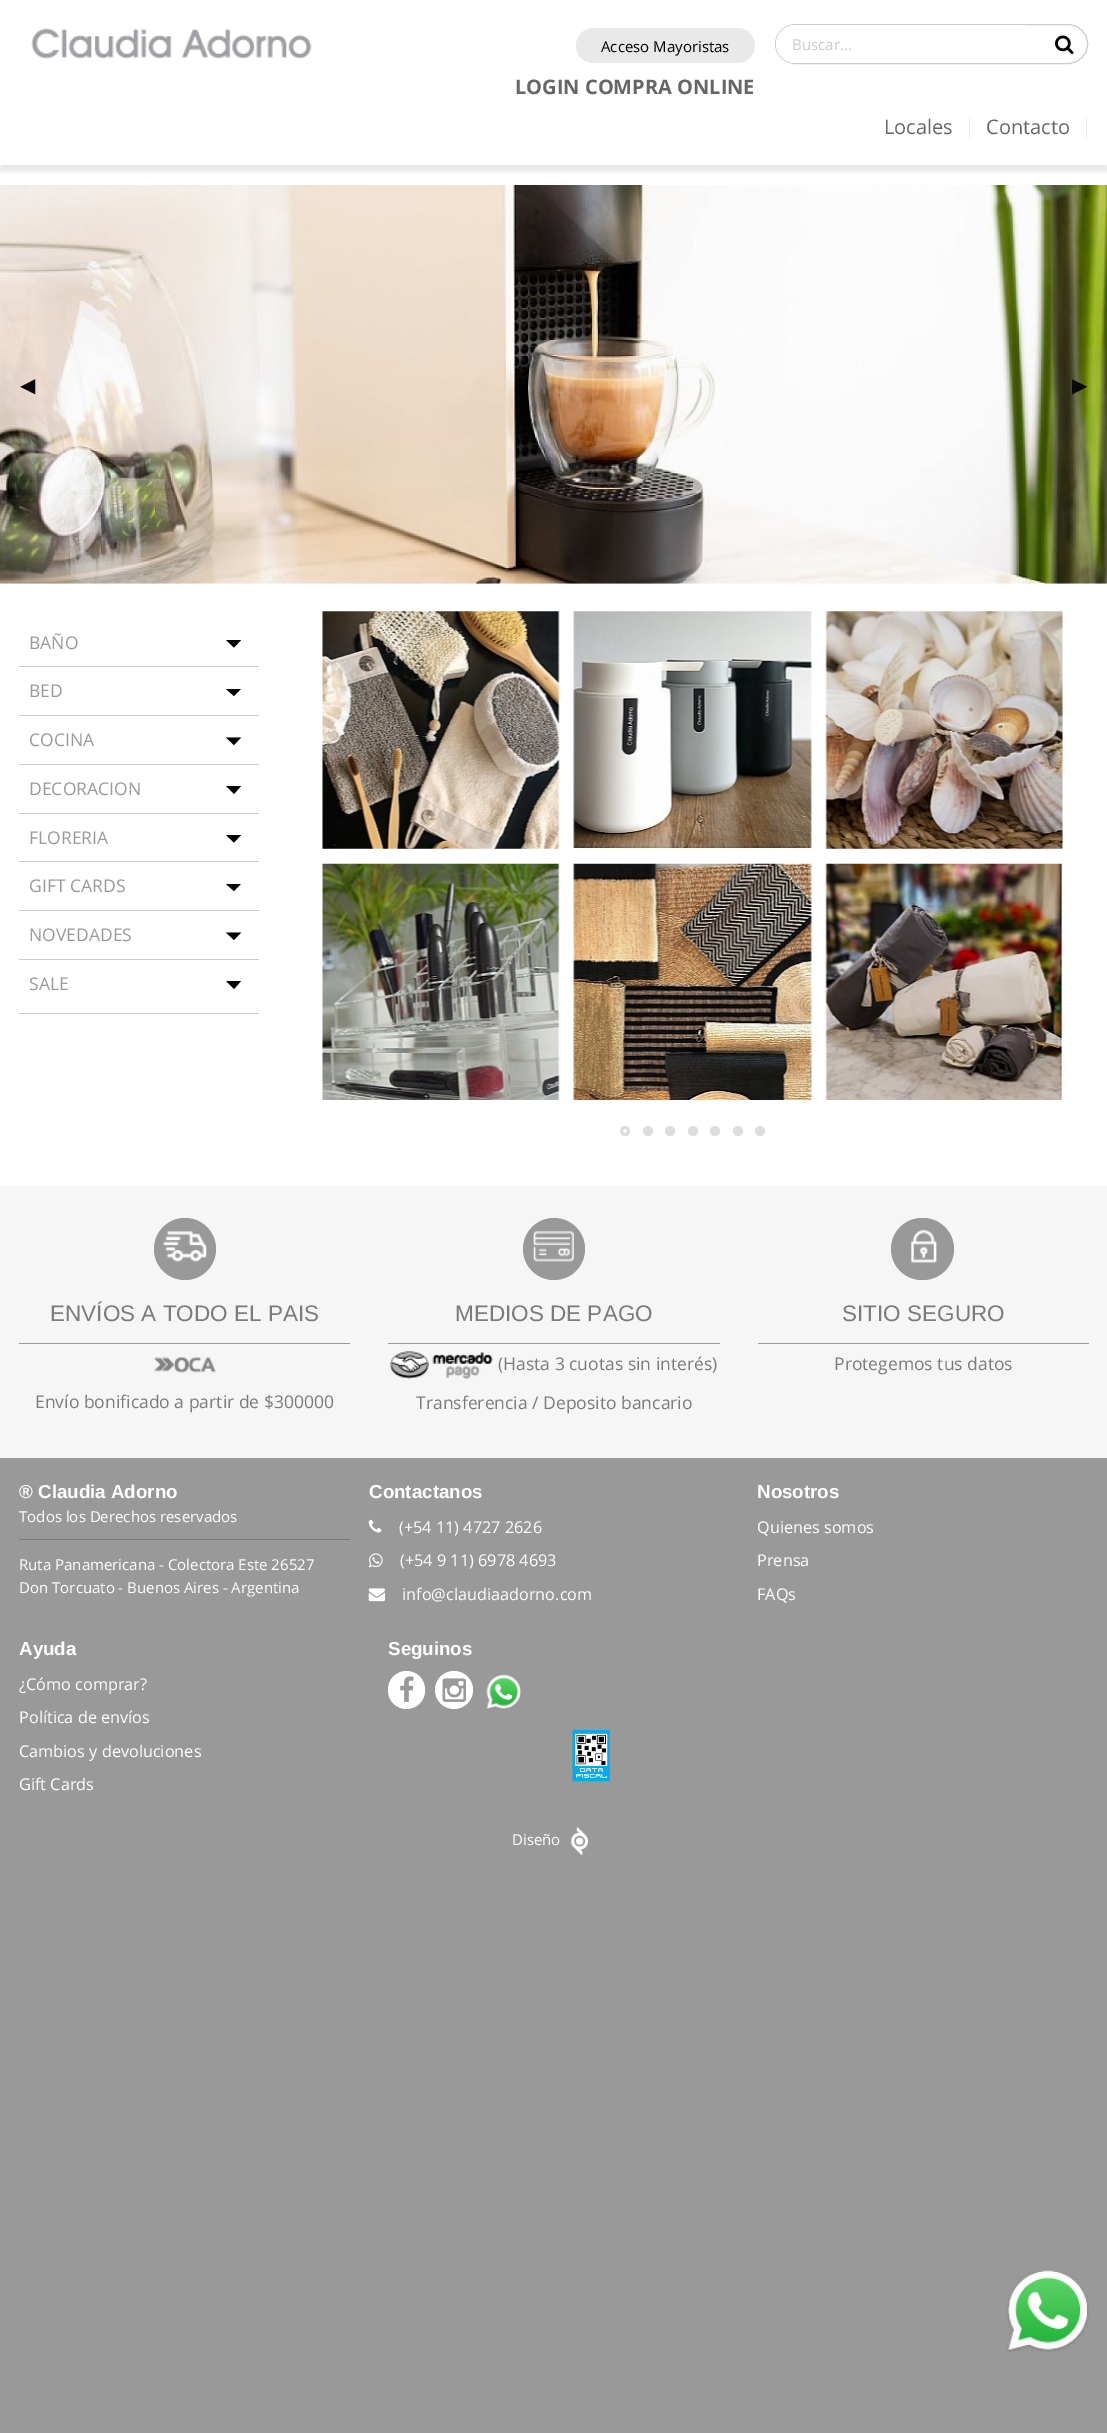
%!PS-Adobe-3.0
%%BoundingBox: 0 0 1107 2433
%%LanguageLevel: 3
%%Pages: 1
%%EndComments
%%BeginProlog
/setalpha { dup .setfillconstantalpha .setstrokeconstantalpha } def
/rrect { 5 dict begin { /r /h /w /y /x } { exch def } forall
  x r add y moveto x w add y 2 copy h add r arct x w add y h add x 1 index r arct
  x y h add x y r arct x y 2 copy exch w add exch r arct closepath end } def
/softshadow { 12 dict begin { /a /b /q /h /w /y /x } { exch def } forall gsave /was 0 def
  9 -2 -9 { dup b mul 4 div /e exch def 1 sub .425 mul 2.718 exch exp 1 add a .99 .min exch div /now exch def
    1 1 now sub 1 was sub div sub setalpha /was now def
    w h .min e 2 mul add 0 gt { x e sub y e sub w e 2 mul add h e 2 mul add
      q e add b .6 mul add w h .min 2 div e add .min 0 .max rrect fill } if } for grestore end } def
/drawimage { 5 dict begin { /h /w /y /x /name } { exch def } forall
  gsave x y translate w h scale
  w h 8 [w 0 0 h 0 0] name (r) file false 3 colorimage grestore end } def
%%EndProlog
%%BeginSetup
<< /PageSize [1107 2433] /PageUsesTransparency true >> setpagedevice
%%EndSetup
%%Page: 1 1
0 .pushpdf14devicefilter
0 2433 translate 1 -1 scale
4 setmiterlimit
0.6 setgray
0 0 1107 2433 rectfill
1 setgray
0 0 1107 1186 rectfill
gsave
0 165 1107 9 rectclip
0 setgray
0 6 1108 165 0 3 0.1 softshadow
grestore
(images/1.raw) 31 28 281 31 drawimage
0.914 setgray
576 28 179 35 17.5 rrect fill
0.8 setgray
775.5 24.5 312 39 19.5 rrect stroke
1 setgray
776 25 265 38 19 rrect fill
(images/2.raw) 1055 35 19 20 drawimage
0.933 setgray
1086 118 1 20 rectfill
969 118 1 20 rectfill
(images/3.raw) 0 185 1107 399 drawimage
0.8 setgray
19 1013 240 1 rectfill
19 666 240 1 rectfill
0 setgray
newpath 226 640 moveto 241 640 lineto 234 647.5 lineto closepath fill
0.8 setgray
19 715 240 1 rectfill
0 setgray
newpath 226 689 moveto 241 689 lineto 234 696 lineto closepath fill
0.8 setgray
19 764 240 1 rectfill
0 setgray
newpath 226 737.5 moveto 241 737.5 lineto 234 745 lineto closepath fill
0.8 setgray
19 813 240 1 rectfill
0 setgray
newpath 226 786 moveto 241 786 lineto 234 794 lineto closepath fill
0.8 setgray
19 861 240 1 rectfill
0 setgray
newpath 226 835 moveto 241 835 lineto 234 842.5 lineto closepath fill
0.8 setgray
19 910 240 1 rectfill
0 setgray
newpath 226 884 moveto 241 884 lineto 234 891 lineto closepath fill
0.8 setgray
19 959 240 1 rectfill
0 setgray
newpath 226 932.5 moveto 241 932.5 lineto 234 940 lineto closepath fill
newpath 226 981 moveto 241 981 lineto 234 989 lineto closepath fill
(images/4.raw) 322 611 238 238 drawimage
(images/5.raw) 573 611 239 238 drawimage
(images/6.raw) 825 611 238 238 drawimage
(images/7.raw) 322 863 238 237 drawimage
(images/8.raw) 573 863 239 237 drawimage
(images/9.raw) 825 863 238 237 drawimage
0.867 setgray
3 setlinewidth
newpath 625 1131 3.5 0 360 arc closepath stroke
newpath 648 1131 3.5 0 360 arc closepath gsave fill grestore
stroke
newpath 670 1131 3.5 0 360 arc closepath gsave fill grestore
stroke
newpath 693 1131 3.5 0 360 arc closepath gsave fill grestore
stroke
newpath 715 1131 3.5 0 360 arc closepath gsave fill grestore
stroke
newpath 738 1131 3.5 0 360 arc closepath gsave fill grestore
stroke
newpath 760 1131 3.5 0 360 arc closepath gsave fill grestore
stroke
0.965 setgray
0 1186 1107 272 rectfill
0.6 setgray
newpath 185 1249 31 0 360 arc closepath fill
(images/10.raw) 163 1231 44 31 drawimage
19 1343 331 1 rectfill
(images/11.raw) 153 1357 63 16 drawimage
newpath 554 1249 31 0 360 arc closepath fill
(images/12.raw) 533 1231 41 31 drawimage
388 1343 332 1 rectfill
(images/13.raw) 390 1351 103 28 drawimage
891 1218 63 62 31 rrect fill
(images/14.raw) 911 1229 26 34 drawimage
758 1343 331 1 rectfill
0.478 setgray
19 1539 331 1 rectfill
(images/15.raw) 368 1519 14 14 drawimage
(images/16.raw) 368 1553 15 15 drawimage
(images/17.raw) 368 1588 17 14 drawimage
1 setgray
388 1671 37 38 18.5 rrect fill
(images/18.raw) 400 1676 14 26 drawimage
newpath 454 1690 19 0 360 arc closepath fill
(images/19.raw) 442 1678 25 24 drawimage
(images/20.raw) 486 1674 35 36 drawimage
(images/21.raw) 572 1730 38 52 drawimage
(images/22.raw) 570 1827 18 29 drawimage
(images/23.raw) 1007 2270 82 83 drawimage
/OpenSans-Regular [15 0 0 -15 0 0] selectfont
0 setgray
601 52 moveto (Acceso Mayoristas) show
/OpenSans-Bold [20 0 0 -20 0 0] selectfont
0.4 setgray
515 94 moveto (LOGIN COMPRA ONLINE) show
/OpenSans-Regular [15 0 0 -15 0 0] selectfont
0.792 setgray
792 50 moveto (Buscar...) show
/OpenSans-Regular [20 0 0 -20 0 0] selectfont
0.4 setgray
884 134 moveto (Locales) show
986 134 moveto (Contacto) show
/DejaVuSans-Regular [20 0 0 -20 0 0] selectfont
0.039 setgray
20 392 moveto (◀) show
1072 392 moveto (▶) show
/OpenSans-Regular [17.5 0 0 -17.5 0 0] selectfont
0.6 setgray
29 649 moveto (BAÑO) show
29 697 moveto (BED) show
29 746 moveto (COCINA) show
29 795 moveto (DECORACION) show
29 844 moveto (FLORERIA) show
29 892 moveto (GIFT CARDS) show
29 941 moveto (NOVEDADES) show
29 990 moveto (SALE) show
/LiberationSans-Regular [22.5 0 0 -22.5 0 0] selectfont
0.482 setgray
50 1321 moveto (ENVÍOS A TODO EL PAIS) show
/OpenSans-Regular [17.5 0 0 -17.5 0 0] selectfont
35 1408 moveto (Envío bonificado a partir de $300000) show
/LiberationSans-Regular [22.5 0 0 -22.5 0 0] selectfont
455 1321 moveto (MEDIOS DE PAGO) show
/OpenSans-Regular [17.5 0 0 -17.5 0 0] selectfont
498 1370 moveto (\(Hasta 3 cuotas sin interés\)) show
416 1409 moveto (Transferencia / Deposito bancario) show
/LiberationSans-Regular [22.5 0 0 -22.5 0 0] selectfont
842 1321 moveto (SITIO SEGURO) show
/OpenSans-Regular [17.5 0 0 -17.5 0 0] selectfont
834 1370 moveto (Protegemos tus datos) show
/LiberationSans-Bold [18.75 0 0 -18.75 0 0] selectfont
1 setgray
19 1498 moveto (® Claudia Adorno) show
/OpenSans-Regular [15 0 0 -15 0 0] selectfont
19 1522 moveto (Todos los Derechos reservados) show
19 1570 moveto (Ruta Panamericana - Colectora Este 26527) show
19 1593 moveto (Don Torcuato - Buenos Aires - Argentina) show
/LiberationSans-Bold [18.75 0 0 -18.75 0 0] selectfont
369 1498 moveto (Contactanos) show
/OpenSans-Regular [16.25 0 0 -16.25 0 0] selectfont
399 1533 moveto (\(+54 11\) 4727 2626) show
400 1566 moveto (\(+54 9 11\) 6978 4693) show
402 1600 moveto (info@claudiaadorno.com) show
/LiberationSans-Bold [18.75 0 0 -18.75 0 0] selectfont
757 1498 moveto (Nosotros) show
/OpenSans-Regular [16.25 0 0 -16.25 0 0] selectfont
757 1533 moveto (Quienes somos) show
757 1566 moveto (Prensa) show
757 1600 moveto (FAQs) show
/LiberationSans-Bold [18.75 0 0 -18.75 0 0] selectfont
19 1655 moveto (Ayuda) show
/OpenSans-Regular [16.25 0 0 -16.25 0 0] selectfont
19 1690 moveto (¿Cómo comprar?) show
19 1723 moveto (Política de envíos) show
19 1757 moveto (Cambios y devoluciones) show
19 1790 moveto (Gift Cards) show
/LiberationSans-Bold [18.75 0 0 -18.75 0 0] selectfont
388 1655 moveto (Seguinos) show
/OpenSans-Regular [15 0 0 -15 0 0] selectfont
512 1845 moveto (Diseño) show
.poppdf14devicefilter showpage
%%EOF
